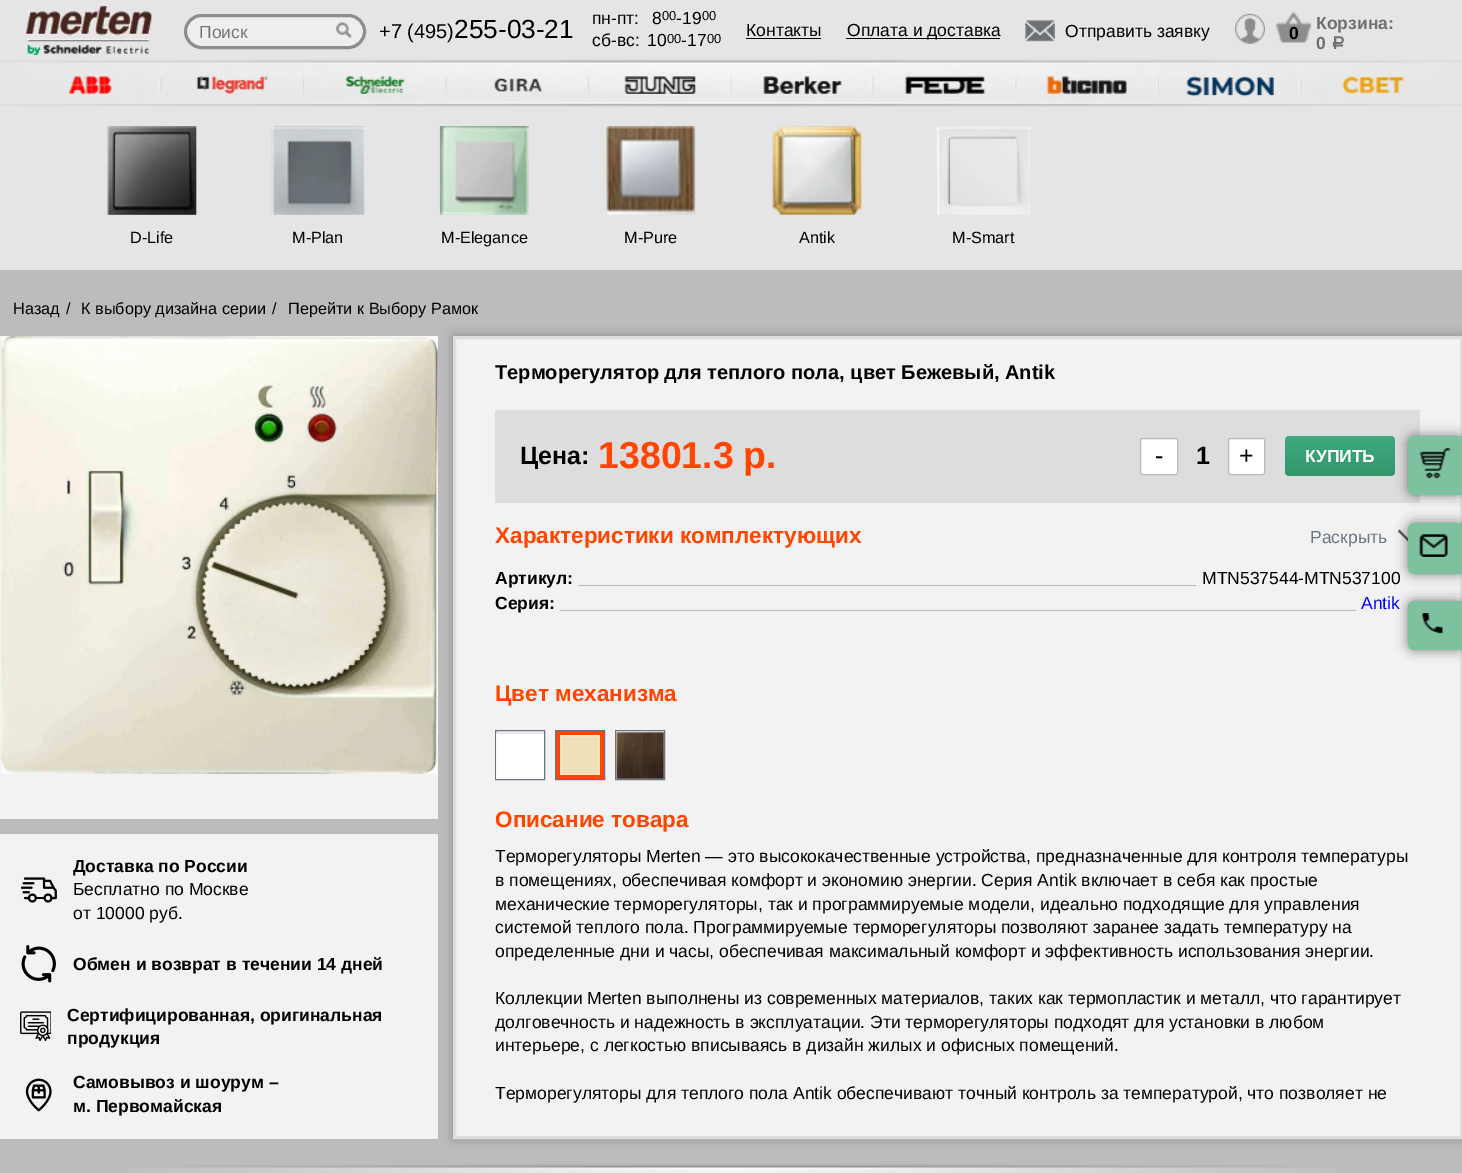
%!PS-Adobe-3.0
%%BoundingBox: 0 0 1462 1173
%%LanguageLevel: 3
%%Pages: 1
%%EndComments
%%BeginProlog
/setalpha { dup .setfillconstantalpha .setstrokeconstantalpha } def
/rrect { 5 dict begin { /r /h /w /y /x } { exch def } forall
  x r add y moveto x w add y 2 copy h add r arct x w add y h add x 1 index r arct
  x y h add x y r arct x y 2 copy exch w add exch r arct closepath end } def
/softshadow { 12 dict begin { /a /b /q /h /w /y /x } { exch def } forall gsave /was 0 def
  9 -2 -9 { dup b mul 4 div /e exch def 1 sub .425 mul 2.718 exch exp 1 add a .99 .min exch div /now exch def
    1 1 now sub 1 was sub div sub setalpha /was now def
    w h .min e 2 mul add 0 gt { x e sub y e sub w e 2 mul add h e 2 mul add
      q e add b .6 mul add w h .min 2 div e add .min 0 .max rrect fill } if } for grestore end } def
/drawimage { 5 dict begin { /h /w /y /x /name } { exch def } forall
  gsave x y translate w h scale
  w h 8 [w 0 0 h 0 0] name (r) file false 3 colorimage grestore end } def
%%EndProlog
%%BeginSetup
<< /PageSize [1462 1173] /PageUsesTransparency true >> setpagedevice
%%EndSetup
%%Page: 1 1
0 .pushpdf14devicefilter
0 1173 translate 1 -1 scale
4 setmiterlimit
0.737 setgray
0 0 1462 1173 rectfill
0.898 setgray
0 0 1462 270 rectfill
(images/1.raw) 26 6 126 49 drawimage
0.933 setgray
185.5 15.5 179 32 16 rrect gsave fill grestore
0.545 0.557 0.565 setrgbcolor
3 setlinewidth
stroke
(images/2.raw) 336 22 16 16 drawimage
0 setgray
746 38 75 1 rectfill
846 38 154 1 rectfill
(images/3.raw) 1025 20 30 22 drawimage
(images/4.raw) 1235 13 30 31 drawimage
(images/5.raw) 1276 12 36 31 drawimage
(images/6.raw) 0 59 1462 48 drawimage
(images/7.raw) 69 76 43 18 drawimage
(images/8.raw) 158 76 4 17 drawimage
(images/9.raw) 196 76 72 18 drawimage
(images/10.raw) 301 74 3 21 drawimage
(images/11.raw) 345 76 60 18 drawimage
(images/12.raw) 444 74 3 19 drawimage
(images/13.raw) 494 78 48 14 drawimage
(images/14.raw) 586 74 3 22 drawimage
(images/15.raw) 624 76 72 18 drawimage
(images/16.raw) 730 74 2 20 drawimage
(images/17.raw) 763 76 79 18 drawimage
(images/18.raw) 871 74 3 22 drawimage
(images/19.raw) 904 76 82 18 drawimage
(images/20.raw) 1014 74 3 18 drawimage
(images/21.raw) 1046 76 81 18 drawimage
(images/22.raw) 1156 74 3 21 drawimage
(images/23.raw) 1185 76 89 21 drawimage
(images/24.raw) 1298 77 4 16 drawimage
(images/25.raw) 1342 76 63 18 drawimage
(images/26.raw) 107 126 90 89 drawimage
(images/27.raw) 271 126 94 89 drawimage
(images/28.raw) 439 126 90 89 drawimage
(images/29.raw) 606 126 90 89 drawimage
(images/30.raw) 772 126 90 89 drawimage
(images/31.raw) 936 126 94 89 drawimage
0.949 setgray
0 336 438 483 rectfill
(images/32.raw) 1 336 437 438 drawimage
0 834 438 305 rectfill
(images/33.raw) 21 877 36 26 drawimage
(images/34.raw) 21 945 35 38 drawimage
(images/35.raw) 20 1011 31 31 drawimage
(images/36.raw) 25 1078 27 34 drawimage
0 setgray
453 336 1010 803 0 6 0.25 softshadow
0.949 setgray
newpath 454.5 337.5 moveto 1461.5 337.5 lineto 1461.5 1137.5 lineto 454.5 1137.5 lineto closepath gsave fill grestore
0.867 setgray
stroke
495 410 925 93 rectfill
1 setgray
1140.5 438.5 37 36 2 rrect gsave fill grestore
0.722 setgray
1 setlinewidth
stroke
1 setgray
1228.5 438.5 36 36 2 rrect gsave fill grestore
0.722 setgray
stroke
gsave 1285 436 110 40 6 rrect clip newpath
<< /ShadingType 2 /ColorSpace /DeviceRGB /Coords [1340 436 1340 476] /Extend [true true] /Function << /FunctionType 2 /Domain [0 1] /C0 [0.255 0.663 0.498] /C1 [0.192 0.592 0.427] /N 1 >> >> shfill grestore
0.392 0.369 0.357 setrgbcolor
newpath 1398 531.5 moveto 1399.5 529.5 lineto 1410 540.5 lineto 1408.5 542 lineto closepath fill
0.722 setgray
578 585 618 1 rectfill
560 610 796 1 rectfill
0.416 0.451 0.506 setrgbcolor
495.5 730.5 49 49 rectstroke
(images/37.raw) 496 733 48 46 drawimage
1 0.271 0 setrgbcolor
4 setlinewidth
558 733 44 44 rectstroke
0.416 0.451 0.506 setrgbcolor
1 setlinewidth
555.5 730.5 49 49 rectstroke
(images/38.raw) 560 735 40 40 drawimage
615.5 730.5 49 49 rectstroke
(images/39.raw) 616 732 48 47 drawimage
0 setgray
1408 436 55 59 6 6 0.5 softshadow
0.49 0.757 0.624 setrgbcolor
newpath 1414 436 moveto 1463 436 lineto 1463 495 lineto 1414 495 lineto 1410.5 495 1408 492.5 1408 489 curveto 1408 442 lineto 1408 438.5 1410.5 436 1414 436 curveto closepath fill
(images/40.raw) 1419 448 32 31 drawimage
0 setgray
1408 523 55 51 6 6 0.5 softshadow
0.49 0.757 0.624 setrgbcolor
newpath 1414 523 moveto 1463 523 lineto 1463 574 lineto 1414 574 lineto 1410.5 574 1408 571.5 1408 568 curveto 1408 529 lineto 1408 525.5 1410.5 523 1414 523 curveto closepath fill
(images/41.raw) 1419 534 29 23 drawimage
0 setgray
1408 601 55 49 6 6 0.5 softshadow
0.49 0.757 0.624 setrgbcolor
newpath 1414 601 moveto 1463 601 lineto 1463 650 lineto 1414 650 lineto 1410.5 650 1408 647.5 1408 644 curveto 1408 607 lineto 1408 603.5 1410.5 601 1414 601 curveto closepath fill
(images/42.raw) 1422 613 21 21 drawimage
(images/43.raw) 128 1164 1207 9 drawimage
/LiberationSans-Regular [17.5 0 0 -17.5 0 0] selectfont
0.459 setgray
199 38 moveto (Поиск) show
/LiberationSans-Regular [20 0 0 -20 0 0] selectfont
0 setgray
379 38 moveto (+7 \(495\)) show
/LiberationSans-Regular [26.25 0 0 -26.25 0 0] selectfont
454 38 moveto (255-03-21) show
/LiberationSans-Regular [17.5 0 0 -17.5 0 0] selectfont
592 24 moveto (пн-пт:) show
652 24 moveto (8) show
/LiberationSans-Regular [13 0 0 -13 0 0] selectfont
662 20 moveto (00) show
/LiberationSans-Regular [17.5 0 0 -17.5 0 0] selectfont
676 24 moveto (-19) show
/LiberationSans-Regular [13 0 0 -13 0 0] selectfont
702 20 moveto (00) show
/LiberationSans-Regular [17.5 0 0 -17.5 0 0] selectfont
592 46 moveto (сб-вс:) show
647 46 moveto (10) show
/LiberationSans-Regular [13 0 0 -13 0 0] selectfont
667 43 moveto (00) show
/LiberationSans-Regular [17.5 0 0 -17.5 0 0] selectfont
681 46 moveto (-17) show
/LiberationSans-Regular [13 0 0 -13 0 0] selectfont
707 43 moveto (00) show
/LiberationSans-Regular [17.5 0 0 -17.5 0 0] selectfont
746 36 moveto (Контакты) show
847 36 moveto (Оплата и доставка) show
1065 37 moveto (Отправить заявку) show
/LiberationSans-Bold [17.5 0 0 -17.5 0 0] selectfont
1289 39 moveto (0) show
0.424 0.439 0.447 setrgbcolor
1316 29 moveto (Корзина:) show
1316 49 moveto (0) show
/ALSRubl-Bold [17.5 0 0 -17.5 0 0] selectfont
1330 49 moveto (a) show
/LiberationSans-Regular [16.25 0 0 -16.25 0 0] selectfont
0 setgray
130 243 moveto (D-Life) show
292 243 moveto (M-Plan) show
441 243 moveto (M-Elegance) show
624 243 moveto (M-Pure) show
799 243 moveto (Antik) show
952 243 moveto (M-Smart) show
13 314 moveto (Назад) show
66 314 moveto (/) show
81 314 moveto (К выбору дизайна серии) show
272 314 moveto (/) show
288 314 moveto (Перейти к Выбору Рамок) show
/LiberationSans-Bold [17.5 0 0 -17.5 0 0] selectfont
73 872 moveto (Доставка по России) show
/LiberationSans-Regular [17.5 0 0 -17.5 0 0] selectfont
73 895 moveto (Бесплатно по Москве) show
73 919 moveto (от 10000 руб.) show
/LiberationSans-Bold [17.5 0 0 -17.5 0 0] selectfont
73 970 moveto (Обмен и возврат в течении 14 дней) show
67 1021 moveto (Сертифицированная, оригинальная) show
67 1044 moveto (продукция) show
73 1088 moveto (Самовывоз и шоурум –) show
73 1112 moveto (м. Первомайская) show
/LiberationSans-Bold [20 0 0 -20 0 0] selectfont
495 379 moveto (Терморегулятор для теплого пола, цвет Бежевый, Antik) show
/LiberationSans-Bold [25 0 0 -25 0 0] selectfont
520 464 moveto (Цена:) show
/LiberationSans-Bold [37.5 0 0 -37.5 0 0] selectfont
1 0.271 0 setrgbcolor
598 468 moveto (13801.3) show
743 468 moveto (р.) show
/LiberationSans-Regular [25 0 0 -25 0 0] selectfont
0 setgray
1155 464 moveto (-) show
/LiberationSans-Bold [25 0 0 -25 0 0] selectfont
1196 464 moveto (1) show
/LiberationSans-Regular [25 0 0 -25 0 0] selectfont
1239 464 moveto (+) show
/LiberationSans-Bold [17.5 0 0 -17.5 0 0] selectfont
1 setgray
1305 462 moveto (КУПИТЬ) show
/LiberationSans-Bold [22.5 0 0 -22.5 0 0] selectfont
1 0.271 0 setrgbcolor
495 543 moveto (Характеристики комплектующих) show
/LiberationSans-Regular [17.5 0 0 -17.5 0 0] selectfont
0.416 0.451 0.506 setrgbcolor
1310 543 moveto (Раскрыть) show
/LiberationSans-Bold [17.5 0 0 -17.5 0 0] selectfont
0 setgray
495 584 moveto (Артикул:) show
/LiberationSans-Regular [17.5 0 0 -17.5 0 0] selectfont
1202 584 moveto (MTN537544-MTN537100) show
/LiberationSans-Bold [17.5 0 0 -17.5 0 0] selectfont
495 609 moveto (Серия:) show
/LiberationSans-Regular [17.5 0 0 -17.5 0 0] selectfont
0 0 1 setrgbcolor
1361 609 moveto (Antik) show
/LiberationSans-Bold [22.5 0 0 -22.5 0 0] selectfont
1 0.271 0 setrgbcolor
495 701 moveto (Цвет механизма) show
495 827 moveto (Описание товара) show
/LiberationSans-Regular [17.5 0 0 -17.5 0 0] selectfont
0 setgray
495 862 moveto (Терморегуляторы Merten — это высококачественные устройства, предназначенные для контроля температуры) show
495 886 moveto (в помещениях, обеспечивая комфорт и экономию энергии. Серия Antik включает в себя как простые) show
495 910 moveto (механические терморегуляторы, так и программируемые модели, идеально подходящие для управления) show
495 933 moveto (системой теплого пола. Программируемые терморегуляторы позволяют заранее задать температуру на) show
495 957 moveto (определенные дни и часы, обеспечивая максимальный комфорт и эффективность использования энергии.) show
495 1004 moveto (Коллекции Merten выполнены из современных материалов, таких как термопластик и металл, что гарантирует) show
495 1028 moveto (долговечность и надежность в эксплуатации. Эти терморегуляторы подходят для установки в любом) show
495 1051 moveto (интерьере, с легкостью вписываясь в дизайн жилых и офисных помещений.) show
495 1099 moveto (Терморегуляторы для теплого пола Antik обеспечивают точный контроль за температурой, что позволяет не) show
.poppdf14devicefilter showpage
%%EOF
